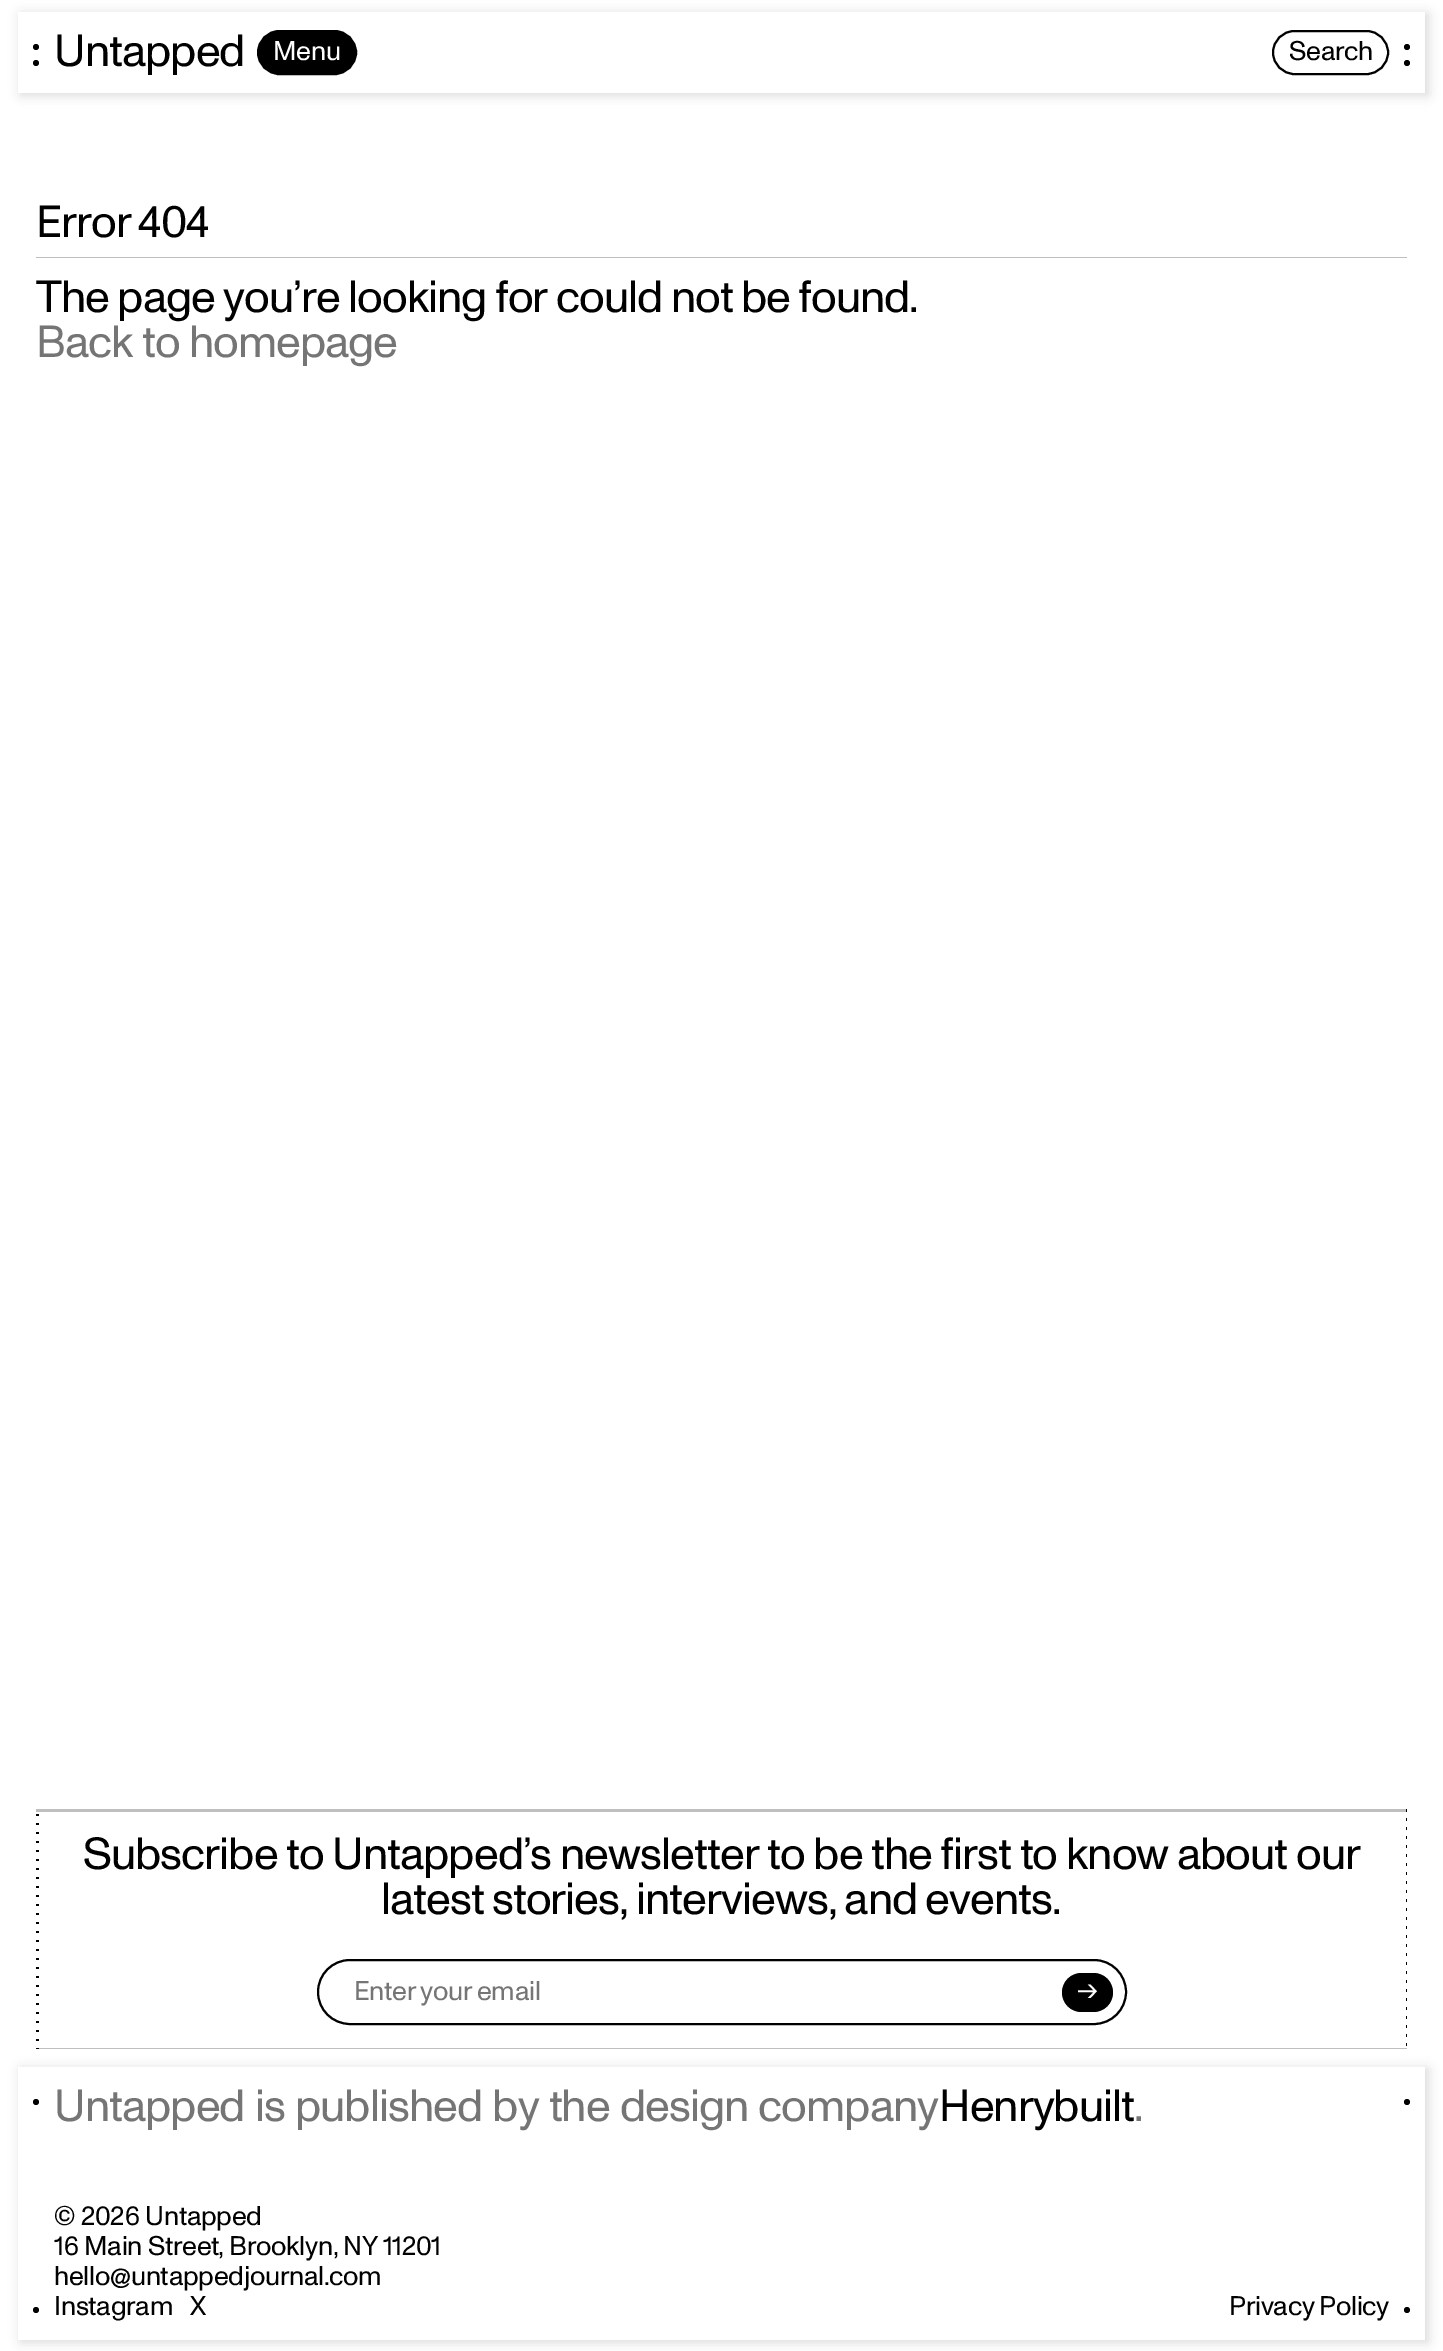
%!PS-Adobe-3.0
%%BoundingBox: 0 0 1443 2351
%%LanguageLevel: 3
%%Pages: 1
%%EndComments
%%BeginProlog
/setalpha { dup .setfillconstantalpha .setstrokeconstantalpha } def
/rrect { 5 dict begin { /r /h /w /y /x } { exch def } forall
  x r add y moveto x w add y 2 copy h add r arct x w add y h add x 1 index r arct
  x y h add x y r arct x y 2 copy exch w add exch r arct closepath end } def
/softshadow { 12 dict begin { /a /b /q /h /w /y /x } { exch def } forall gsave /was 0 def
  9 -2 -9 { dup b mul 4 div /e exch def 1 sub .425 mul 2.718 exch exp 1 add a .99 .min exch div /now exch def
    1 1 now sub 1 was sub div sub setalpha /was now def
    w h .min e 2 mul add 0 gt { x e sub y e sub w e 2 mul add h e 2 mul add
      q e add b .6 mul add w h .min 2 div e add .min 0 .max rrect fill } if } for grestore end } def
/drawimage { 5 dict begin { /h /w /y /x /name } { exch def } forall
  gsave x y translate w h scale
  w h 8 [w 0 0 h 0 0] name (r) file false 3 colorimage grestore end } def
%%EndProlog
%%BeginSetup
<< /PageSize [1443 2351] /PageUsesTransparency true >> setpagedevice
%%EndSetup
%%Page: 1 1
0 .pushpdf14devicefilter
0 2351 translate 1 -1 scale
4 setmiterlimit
1 setgray
0 0 1443 2351 rectfill
gsave
newpath 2 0 moveto 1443 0 lineto 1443 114 lineto 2 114 lineto closepath 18 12 moveto 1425 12 lineto 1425 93 lineto 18 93 lineto closepath eoclip newpath
0 setgray
21 14 1407 81 0 6 0.15 softshadow
grestore
0 setgray
newpath 36 47 3 0 360 arc closepath fill
newpath 36 63 3 0 360 arc closepath fill
258 31 98 43 21.5 rrect gsave fill grestore
2 setlinewidth
stroke
1273 31 115 43 21.5 rrect stroke
newpath 1407 47 3 0 360 arc closepath fill
newpath 1407 63 3 0 360 arc closepath fill
0.749 setgray
36 257 1371 1 rectfill
36 2048 1371 1 rectfill
(images/1.raw) 1406 1809 1 237 drawimage
0.25 setalpha
0 setgray
36 1809 1371 3 rectfill
1 setalpha
(images/2.raw) 36 1814 3 235 drawimage
318 1960 808 64 32 rrect stroke
1062 1973 51 39 19.5 rrect fill
gsave
newpath 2 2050 moveto 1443 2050 lineto 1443 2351 lineto 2 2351 lineto closepath 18 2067 moveto 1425 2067 lineto 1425 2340 lineto 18 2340 lineto closepath eoclip newpath
21 2069 1407 273 0 6 0.15 softshadow
grestore
newpath 36 2102 3 0 360 arc closepath fill
newpath 36 2310 3 0 360 arc closepath fill
newpath 1407 2102 3 0 360 arc closepath fill
newpath 1407 2310 3 0 360 arc closepath fill
/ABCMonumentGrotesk-Regular [45 0 0 -45 0 0] selectfont
54 66 moveto -0.9 0 (Untapped) ashow
/ABCMonumentGrotesk-Regular [27 0 0 -27 0 0] selectfont
1 setgray
273 60 moveto -0.25 0 (Menu) ashow
0 setgray
1289 60 moveto -0.25 0 (Search) ashow
/ABCMonumentGrotesk-Regular [45 0 0 -45 0 0] selectfont
36 237 moveto -2 0 32 -0.9 0 (Error 404) awidthshow
36 312 moveto -0.75 0 32 -0.9 0 (The page you’re looking for could not be found.) awidthshow
0.459 setgray
36 357 moveto -0.9 0 (Back to homepage) ashow
0 setgray
83 1869 moveto -0.6 0 32 -0.9 0 (Subscribe to Untapped’s newsletter to be the first to know about our) awidthshow
381 1914 moveto -1.5 0 32 -0.9 0 (latest stories, interviews, and events.) awidthshow
/ABCMonumentGrotesk-Regular [27 0 0 -27 0 0] selectfont
0.459 setgray
354 2000 moveto -1.5 0 32 -0.25 0 (Enter your email) awidthshow
1 setgray
1077 1998 moveto (→) show
/ABCMonumentGrotesk-Regular [45 0 0 -45 0 0] selectfont
0.459 setgray
54 2121 moveto 1 0 32 -0.9 0 (Untapped is published by the design company) awidthshow
0 setgray
939 2121 moveto -0.9 0 (Henrybuilt) ashow
0.459 setgray
1134 2121 moveto -0.9 0 (.) ashow
/ABCMonumentGrotesk-Regular [27 0 0 -27 0 0] selectfont
0 setgray
54 2225 moveto -0.25 0 (© 2026 Untapped) ashow
54 2255 moveto -0.25 0 (16 Main Street) ashow
218 2255 moveto -0.25 0 (,) ashow
229 2255 moveto -1 0 32 -0.25 0 (Brooklyn, NY 11201) awidthshow
54 2285 moveto -0.25 0 (hello@untappedjournal.com) ashow
54 2315 moveto -0.25 0 (Instagram) ashow
190 2315 moveto -0.25 0 (X) ashow
1229 2315 moveto -1 0 32 -0.25 0 (Privacy Policy) awidthshow
.poppdf14devicefilter showpage
%%EOF
